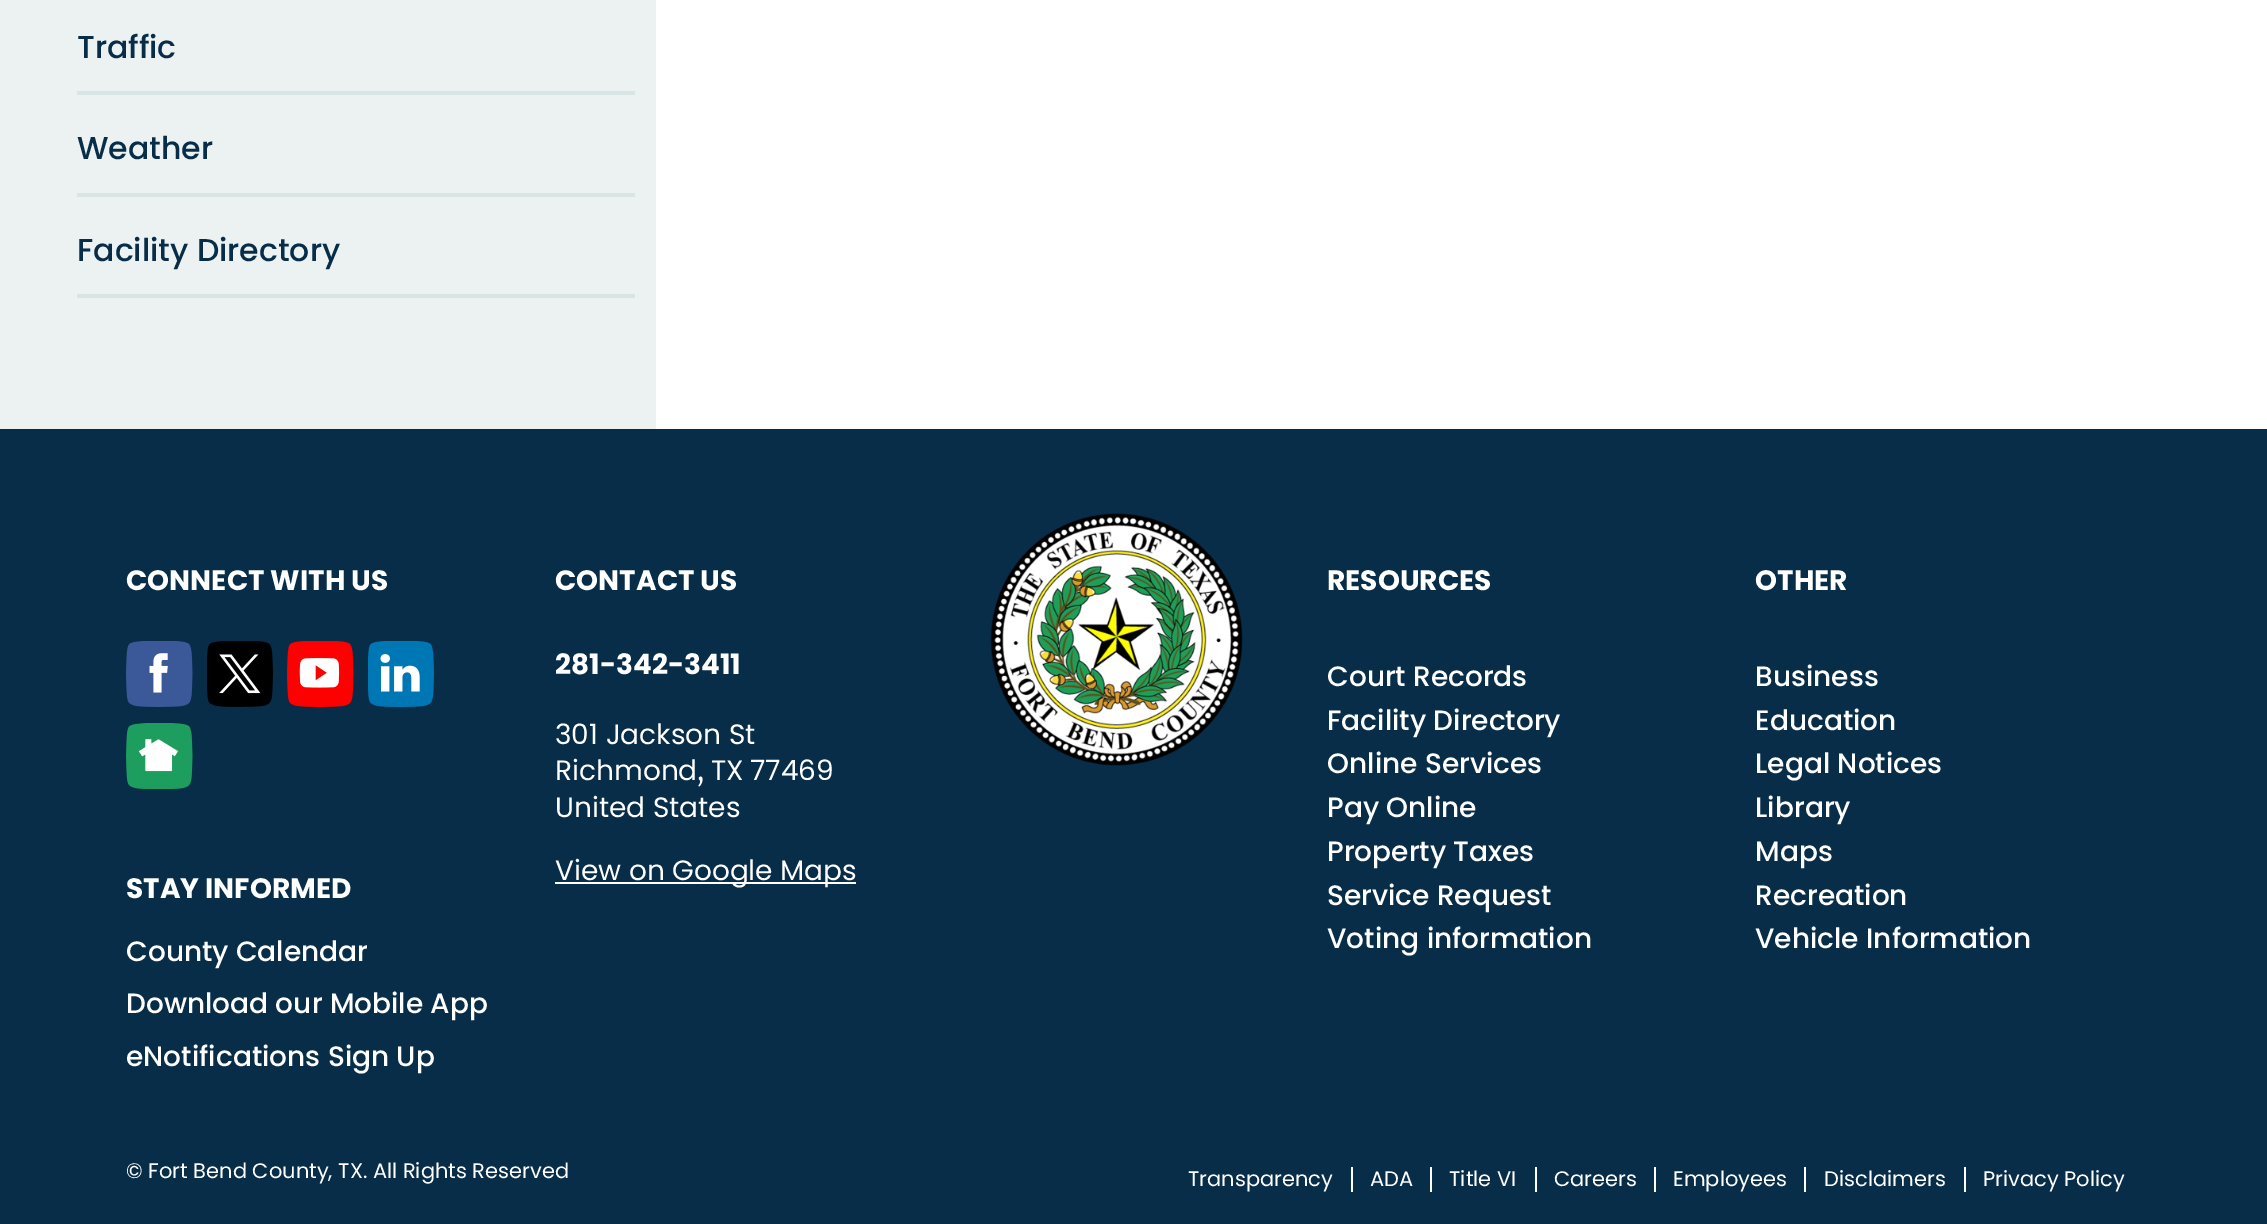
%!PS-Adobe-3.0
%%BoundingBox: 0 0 2267 1224
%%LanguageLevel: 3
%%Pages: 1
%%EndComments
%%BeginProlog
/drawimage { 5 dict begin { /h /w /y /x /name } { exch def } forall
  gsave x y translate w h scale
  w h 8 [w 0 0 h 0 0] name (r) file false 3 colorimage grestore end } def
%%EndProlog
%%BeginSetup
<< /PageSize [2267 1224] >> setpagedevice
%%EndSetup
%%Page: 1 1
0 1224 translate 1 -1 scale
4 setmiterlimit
1 setgray
0 0 2267 1224 rectfill
0.925 0.949 0.949 setrgbcolor
0 0 656 429 rectfill
0.851 0.898 0.898 setrgbcolor
77 91 558 4 rectfill
77 193 558 4 rectfill
77 294 558 4 rectfill
0.027 0.176 0.282 setrgbcolor
0 429 2267 795 rectfill
(images/1.raw) 126 641 67 66 drawimage
(images/2.raw) 207 641 66 66 drawimage
(images/3.raw) 287 641 67 66 drawimage
(images/4.raw) 368 641 66 66 drawimage
(images/5.raw) 126 723 67 66 drawimage
1 setgray
555 882 301 2 rectfill
(images/6.raw) 990 513 253 253 drawimage
1351 1167 2 25 rectfill
1430 1167 2 25 rectfill
1535 1167 2 25 rectfill
1654 1167 2 25 rectfill
1804 1167 2 25 rectfill
1964 1167 2 25 rectfill
/Poppins-Medium [31.5 0 0 -31.5 0 0] selectfont
0.027 0.176 0.282 setrgbcolor
77 58 moveto (Traffic) show
77 159 moveto (Weather) show
77 261 moveto (Facility Directory) show
/Poppins-Bold [28 0 0 -28 0 0] selectfont
1 setgray
126 590 moveto (CONNECT WITH US) show
126 898 moveto (STAY INFORMED) show
/Poppins-Medium [28 0 0 -28 0 0] selectfont
126 961 moveto (County Calendar) show
126 1013 moveto (Download our Mobile App) show
126 1066 moveto (eNotifications Sign Up) show
/Poppins-Bold [28 0 0 -28 0 0] selectfont
555 590 moveto (CONTACT US) show
555 674 moveto (281-342-3411) show
/Poppins-Regular [28 0 0 -28 0 0] selectfont
555 744 moveto (301 Jackson St) show
555 780 moveto (Richmond) show
711 780 moveto (TX) show
750 780 moveto (77469) show
/Merriweather-Regular [28 0 0 -28 0 0] selectfont
697 780 moveto (,) show
/Poppins-Regular [28 0 0 -28 0 0] selectfont
555 817 moveto (United States) show
555 880 moveto (View on Google Maps) show
/Poppins-Bold [28 0 0 -28 0 0] selectfont
1327 590 moveto (RESOURCES) show
/Poppins-Medium [28 0 0 -28 0 0] selectfont
1327 686 moveto (Court Records) show
1327 730 moveto (Facility Directory) show
1327 773 moveto (Online Services) show
1327 817 moveto (Pay Online) show
1327 861 moveto (Property Taxes) show
1327 905 moveto (Service Request) show
1327 948 moveto (Voting information) show
/Poppins-Bold [28 0 0 -28 0 0] selectfont
1755 590 moveto (OTHER) show
/Poppins-Medium [28 0 0 -28 0 0] selectfont
1755 686 moveto (Business) show
1755 730 moveto (Education) show
1755 773 moveto (Legal Notices) show
1755 817 moveto (Library) show
1755 861 moveto (Maps) show
1755 905 moveto (Recreation) show
1755 948 moveto (Vehicle Information) show
/Poppins-Regular [21 0 0 -21 0 0] selectfont
126 1178 moveto (© Fort Bend County, TX. All Rights Reserved) show
1188 1186 moveto (Transparency) show
1370 1186 moveto (ADA) show
1449 1186 moveto (Title VI) show
1554 1186 moveto (Careers) show
1673 1186 moveto (Employees) show
1824 1186 moveto (Disclaimers) show
1983 1186 moveto (Privacy Policy) show
showpage
%%EOF
